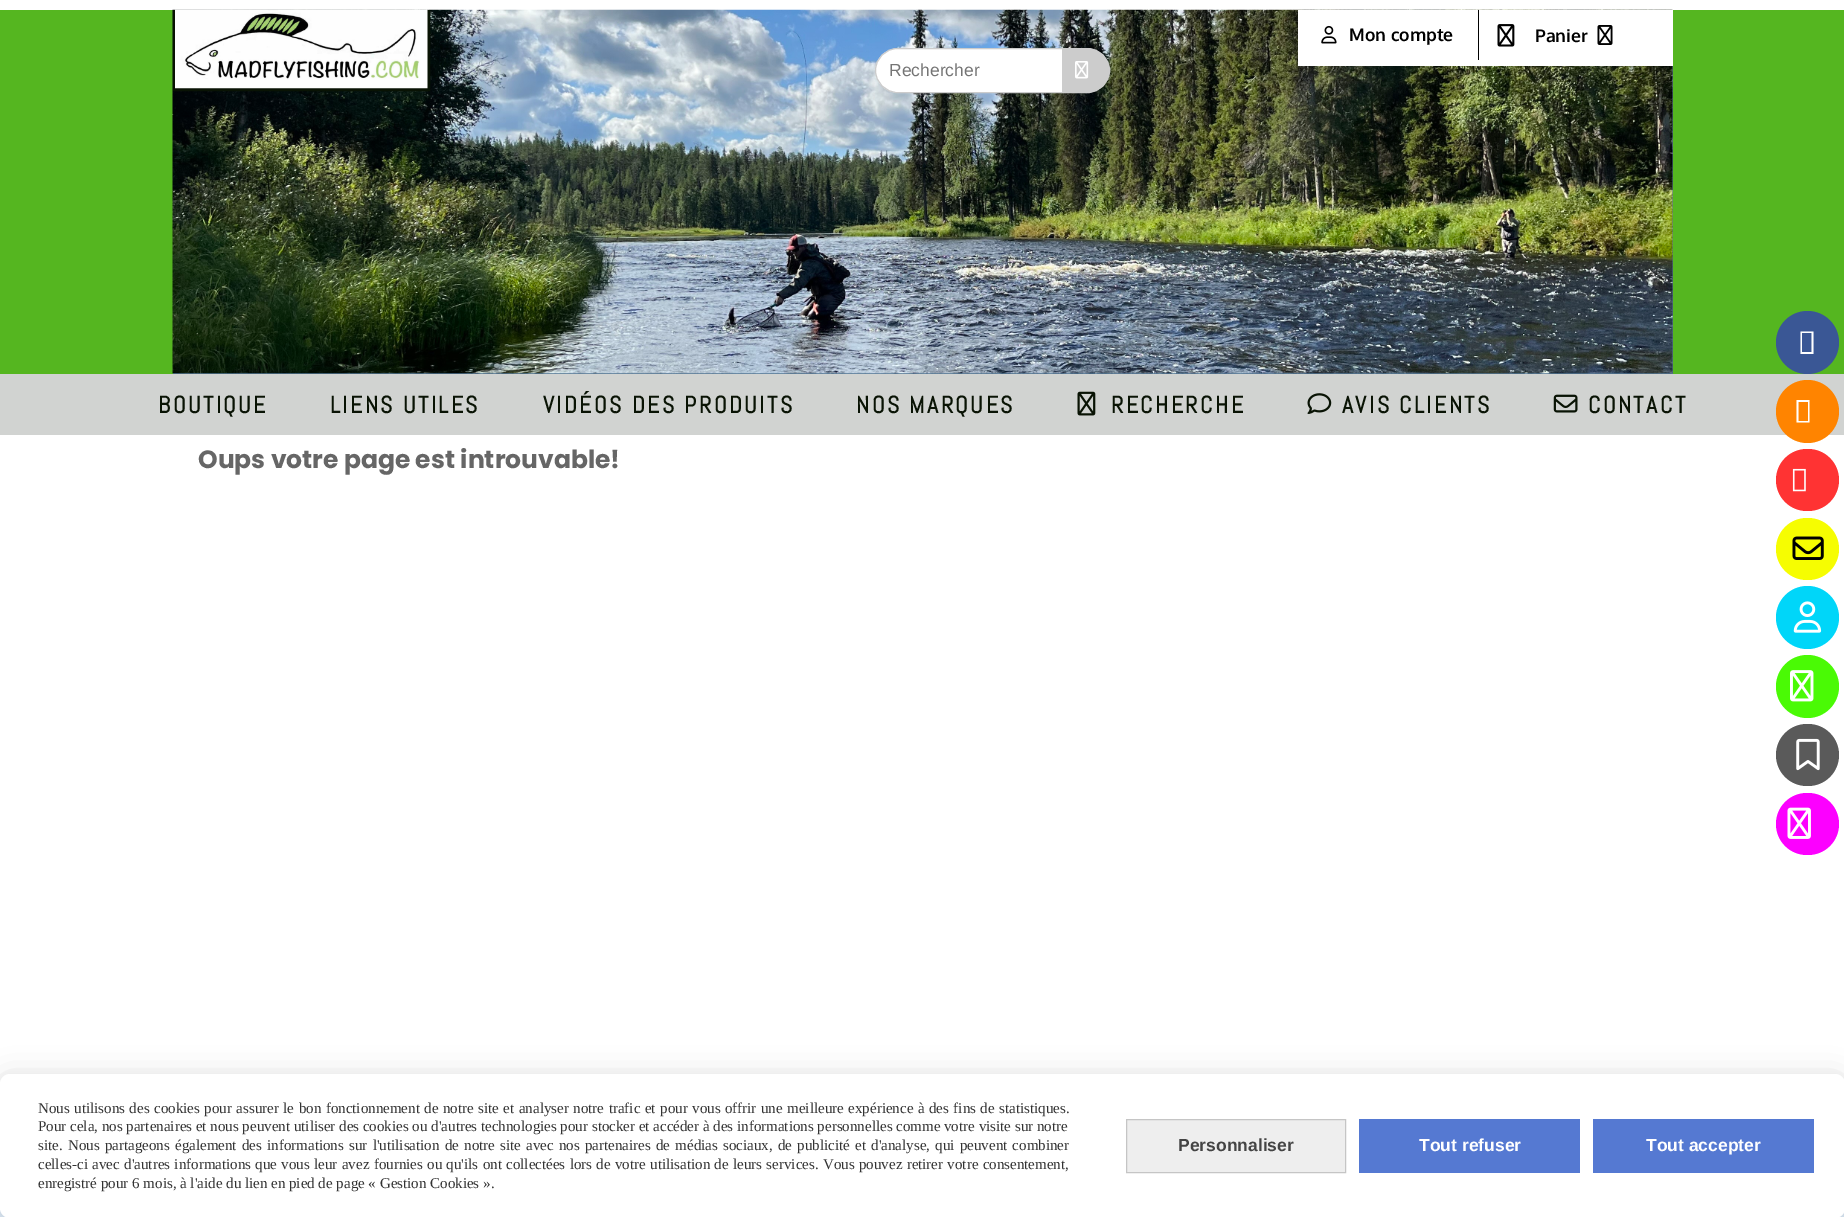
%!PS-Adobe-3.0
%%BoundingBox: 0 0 1844 1217
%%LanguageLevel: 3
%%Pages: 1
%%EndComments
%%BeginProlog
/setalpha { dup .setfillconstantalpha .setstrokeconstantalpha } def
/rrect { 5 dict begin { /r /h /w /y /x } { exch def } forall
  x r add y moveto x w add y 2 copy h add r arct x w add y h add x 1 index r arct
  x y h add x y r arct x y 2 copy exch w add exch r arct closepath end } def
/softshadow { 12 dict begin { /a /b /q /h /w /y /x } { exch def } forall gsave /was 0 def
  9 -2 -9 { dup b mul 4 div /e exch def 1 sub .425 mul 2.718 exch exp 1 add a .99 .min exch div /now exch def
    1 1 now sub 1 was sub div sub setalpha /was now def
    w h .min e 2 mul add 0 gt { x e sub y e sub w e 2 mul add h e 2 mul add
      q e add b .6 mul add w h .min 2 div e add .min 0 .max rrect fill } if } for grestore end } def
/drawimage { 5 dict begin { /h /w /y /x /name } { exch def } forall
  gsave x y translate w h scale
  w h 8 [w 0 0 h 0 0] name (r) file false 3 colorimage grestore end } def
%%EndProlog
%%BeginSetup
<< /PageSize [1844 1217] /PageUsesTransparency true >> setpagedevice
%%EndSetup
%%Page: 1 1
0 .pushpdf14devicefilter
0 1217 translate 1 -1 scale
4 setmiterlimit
1 setgray
0 0 1844 1217 rectfill
0.333 0.714 0.125 setrgbcolor
0 10 1844 364 rectfill
0.322 0.455 0.573 setrgbcolor
173 66 1500 308 rectfill
(images/1.raw) 172 9 1501 365 drawimage
gsave
0 10 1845 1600 rectclip
0.035 0.075 0.016 setrgbcolor
3 setlinewidth
174.5 6.5 254 83 rectstroke
grestore
(images/2.raw) 175 9 253 80 drawimage
1 setgray
1298 10 375 56 rectfill
0 setgray
1478 10 1 50 rectfill
(images/3.raw) 1321 25 16 19 drawimage
(images/4.raw) 1497 24 18 23 drawimage
(images/5.raw) 1597 25 16 20 drawimage
1 setgray
newpath 897.5 48.5 moveto 1062.5 48.5 lineto 1062.5 92.5 lineto 897.5 92.5 lineto 885.5 92.5 875.5 82.5 875.5 70.5 curveto 875.5 58.5 885.5 48.5 897.5 48.5 curveto closepath gsave fill grestore
0.8 setgray
stroke
newpath 1063.5 48.5 moveto 1087.5 48.5 lineto 1099.5 48.5 1109.5 58.5 1109.5 70.5 curveto 1109.5 82.5 1099.5 92.5 1087.5 92.5 curveto 1063.5 92.5 lineto closepath gsave fill grestore
stroke
(images/6.raw) 1075 61 14 18 drawimage
0.82 0.827 0.82 setrgbcolor
0 374 1844 61 rectfill
(images/7.raw) 1077 391 19 25 drawimage
(images/8.raw) 1307 393 25 21 drawimage
(images/9.raw) 1553 394 25 19 drawimage
0.902 0.949 1 setrgbcolor
0 1208 1844 9 rectfill
0.227 0.341 0.584 setrgbcolor
newpath 1807.5 342.5 31.5 0 360 arc closepath fill
1 setgray
newpath 1800.5 354 moveto 1800.5 331.5 lineto 1813.5 331.5 lineto 1813.5 354 lineto closepath 1802 352 moveto 1811.5 352 lineto 1811.5 333 lineto 1802 333 lineto closepath fill
1 0.518 0 setrgbcolor
newpath 1807.5 411.5 31.5 0 360 arc closepath fill
1 setgray
newpath 1796.5 422.5 moveto 1796.5 400 lineto 1809.5 400 lineto 1809.5 422.5 lineto closepath 1798.5 421 moveto 1808 421 lineto 1808 402 lineto 1798.5 402 lineto closepath fill
1 0.2 0.2 setrgbcolor
1776 449 63 62 31 rrect fill
(images/10.raw) 1792 468 14 24 drawimage
0.965 0.992 0.004 setrgbcolor
1776 518 63 62 31 rrect fill
(images/11.raw) 1792 536 32 24 drawimage
0 0.839 0.976 setrgbcolor
newpath 1807.5 617.5 31.5 0 360 arc closepath fill
(images/12.raw) 1793 601 29 32 drawimage
0.29 0.98 0.02 setrgbcolor
newpath 1807.5 686.5 31.5 0 360 arc closepath fill
(images/13.raw) 1790 670 24 32 drawimage
0.353 setgray
1776 724 63 62 31 rrect fill
(images/14.raw) 1796 738 24 33 drawimage
0.988 0 1 setrgbcolor
1776 793 63 62 31 rrect fill
(images/15.raw) 1787 807 24 32 drawimage
0 setgray
0 1076 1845 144 10 4 0.05 softshadow
0 1079 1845 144 10 15 0.15 softshadow
1 setgray
0 1074 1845 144 10 rrect fill
0.933 setgray
newpath 1126.5 1119.5 moveto 1345.5 1119.5 lineto 1345.5 1172.5 lineto 1126.5 1172.5 lineto closepath gsave fill grestore
0.773 setgray
stroke
0.333 0.475 0.824 setrgbcolor
1359 1119 221 54 rectfill
1593 1119 221 54 rectfill
/Oxygen-Bold [17.5 0 0 -17.5 0 0] selectfont
0 setgray
1349 41 moveto (Mon compte) show
1535 42 moveto (Panier) show
/LiberationSans-Regular [17.5 0 0 -17.5 0 0] selectfont
0.459 setgray
889 76 moveto (Rechercher) show
/Abel-Bold [23.75 0 0 -23.75 0 0] selectfont
0.035 0.075 0.016 setrgbcolor
158 413 moveto 2.4 0 (BOUTIQUE) ashow
330 413 moveto 2.4 0 (LIENS UTILES) ashow
543 413 moveto 2.4 0 (VIDÉOS DES PRODUITS) ashow
856 413 moveto 2.4 0 (NOS MARQUES) ashow
1111 413 moveto 2.4 0 (RECHERCHE) ashow
1342 413 moveto 2.4 0 (AVIS CLIENTS) ashow
1588 413 moveto 2.4 0 (CONTACT) ashow
/Poppins-Bold [25 0 0 -25 0 0] selectfont
0.4 setgray
198 468 moveto (Oups votre page est introuvable!) show
/LiberationSerif-Regular [15 0 0 -15 0 0] selectfont
0.2 setgray
38 1113 moveto 0.75 0 32 (Nous utilisons des cookies pour assurer le bon fonctionnement de notre site et analyser notre trafic et pour vous offrir une meilleure expérience à des fins de statistiques.) widthshow
38 1131 moveto (Pour cela, nos partenaires et nous peuvent utiliser des cookies ou d'autres technologies pour stocker et accéder à des informations personnelles comme votre visite sur notre) show
38 1150 moveto 1.5 0 32 (site. Nous partageons également des informations sur l'utilisation de notre site avec nos partenaires de médias sociaux, de publicité et d'analyse, qui peuvent combiner) widthshow
38 1169 moveto 0.6 0 32 (celles-ci avec d'autres informations que vous leur avez fournies ou qu'ils ont collectées lors de votre utilisation de leurs services. Vous pouvez retirer votre consentement,) widthshow
38 1188 moveto (enregistré pour 6 mois, à l'aide du lien en pied de page « Gestion Cookies ».) show
/LiberationSans-Bold [17.5 0 0 -17.5 0 0] selectfont
0.267 setgray
1178 1151 moveto (Personnaliser) show
1 setgray
1419 1151 moveto (Tout refuser) show
1646 1151 moveto (Tout accepter) show
.poppdf14devicefilter showpage
%%EOF
